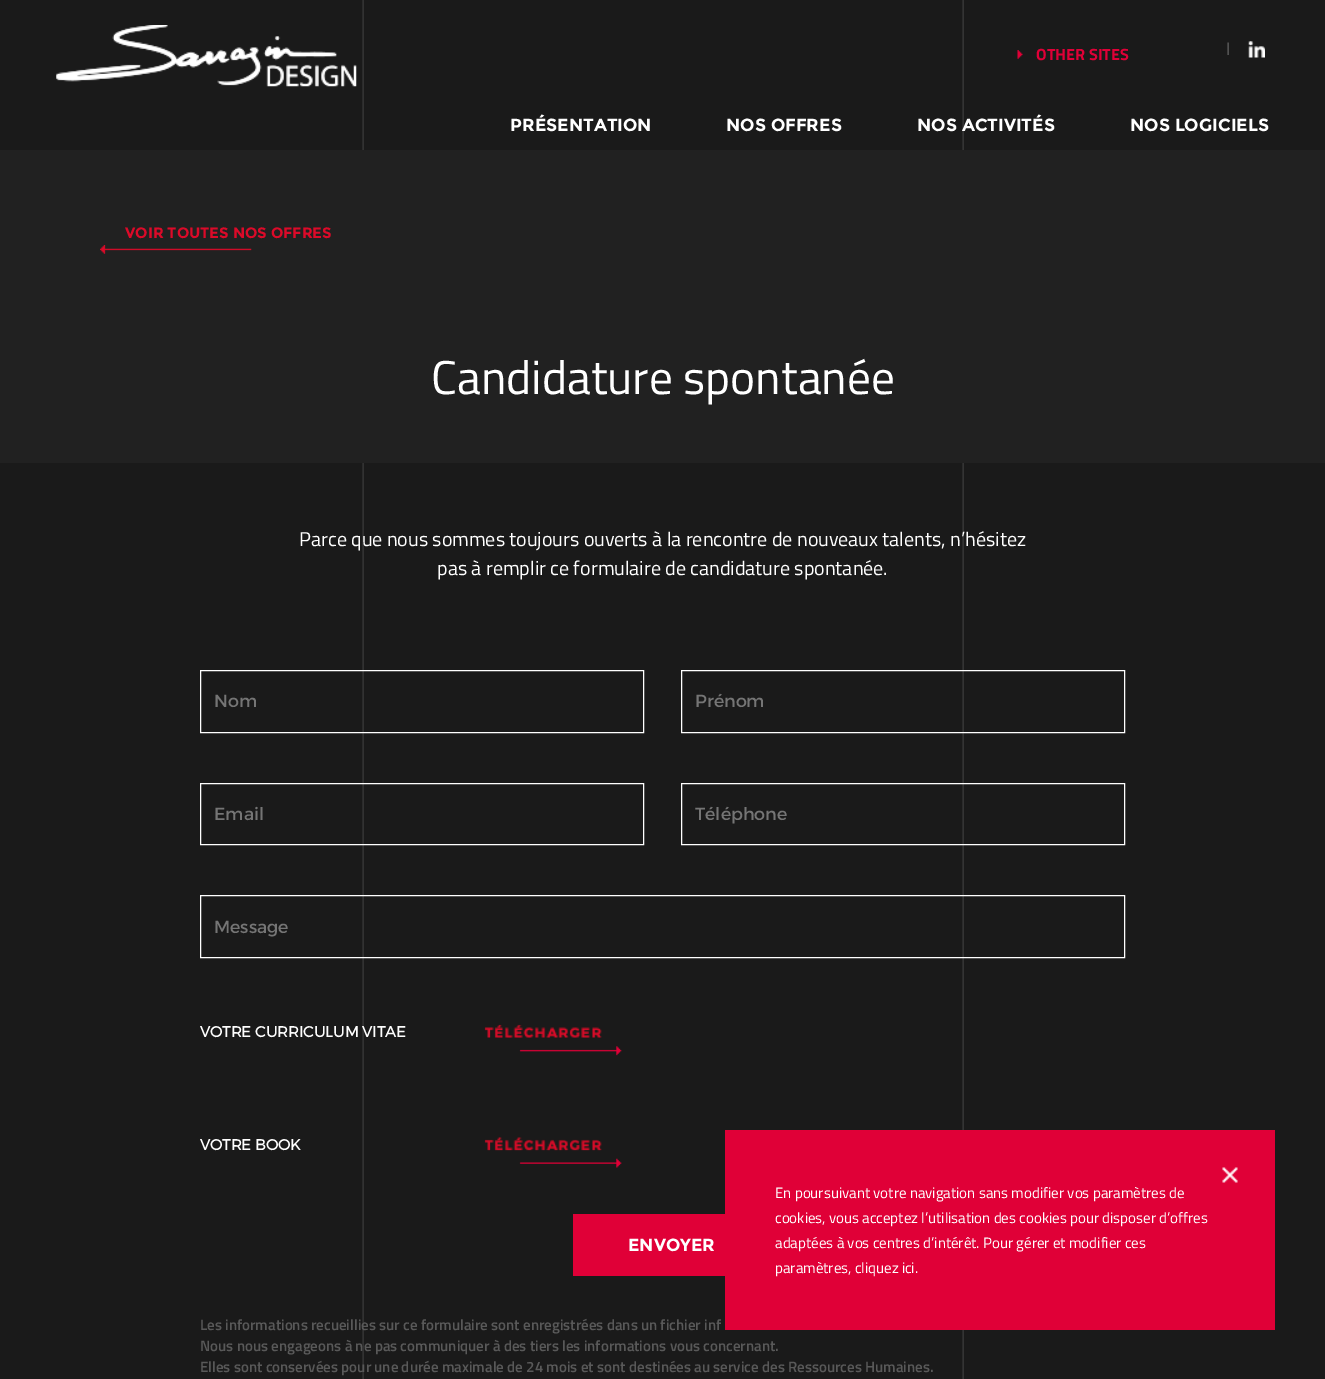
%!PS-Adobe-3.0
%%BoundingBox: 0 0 1325 1379
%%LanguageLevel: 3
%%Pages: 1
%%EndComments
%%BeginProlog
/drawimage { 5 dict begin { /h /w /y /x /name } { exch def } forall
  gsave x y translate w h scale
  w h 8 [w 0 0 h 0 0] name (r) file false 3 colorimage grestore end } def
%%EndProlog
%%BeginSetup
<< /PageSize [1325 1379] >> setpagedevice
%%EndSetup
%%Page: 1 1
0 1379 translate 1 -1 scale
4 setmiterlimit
0.102 setgray
0 0 1325 1379 rectfill
(images/1.raw) 362 0 602 1379 drawimage
(images/2.raw) 56 25 301 62 drawimage
(images/3.raw) 1017 50 6 9 drawimage
(images/4.raw) 1227 42 2 13 drawimage
(images/5.raw) 1248 41 17 17 drawimage
0.129 setgray
0 150 1325 313 rectfill
(images/6.raw) 100 245 152 9 drawimage
1 setgray
200.5 670.5 443 62 rectstroke
681.5 670.5 443 62 rectstroke
200.5 783.5 443 61 rectstroke
681.5 783.5 443 61 rectstroke
200.5 895.5 924 62 rectstroke
(images/7.raw) 484 1024 138 32 drawimage
(images/8.raw) 484 1137 138 31 drawimage
0.878 0 0.216 setrgbcolor
573 1214 152 62 rectfill
725 1130 550 200 rectfill
(images/9.raw) 1222 1167 16 16 drawimage
/TitilliumWeb-Bold [16.25 0 0 -16.25 0 0] selectfont
1036 60 moveto (OTHER SITES) show
/Montserrat-Bold [17.5 0 0 -17.5 0 0] selectfont
1 setgray
510 131 moveto (PRÉSENTATION) show
726 131 moveto (NOS OFFRES) show
917 131 moveto (NOS ACTIVITÉS) show
1130 131 moveto (NOS LOGICIELS) show
/Montserrat-Bold [15 0 0 -15 0 0] selectfont
0.863 0.039 0.161 setrgbcolor
125 238 moveto (VOIR TOUTES NOS OFFRES) show
/TitilliumWeb-Regular [47.5 0 0 -47.5 0 0] selectfont
1 setgray
431 394 moveto (Candidature spontanée) show
/TitilliumWeb-Regular [20 0 0 -20 0 0] selectfont
299 546 moveto (Parce que nous sommes toujours ouverts à la rencontre de nouveaux talents, n’hésitez) show
437 575 moveto (pas à remplir ce formulaire de candidature spontanée.) show
/Montserrat-Regular [17.5 0 0 -17.5 0 0] selectfont
0.459 setgray
214 707 moveto (Nom) show
695 707 moveto (Prénom) show
214 820 moveto (Email) show
695 820 moveto (Téléphone) show
214 933 moveto (Message) show
/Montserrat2-Bold [15 0 0 -15 0 0] selectfont
1 setgray
200 1037 moveto (VOTRE CURRICULUM VITAE) show
200 1150 moveto (VOTRE BOOK) show
/Montserrat-Bold [17.5 0 0 -17.5 0 0] selectfont
628 1251 moveto (ENVOYER) show
/TitilliumWeb-SemiBold [15 0 0 -15 0 0] selectfont
0.349 setgray
200 1330 moveto (Les informations recueillies sur ce formulaire sont enregistrées dans un fichier inf) show
200 1351 moveto (Nous nous engageons à ne pas communiquer à des tiers les informations vous concernant.) show
200 1372 moveto (Elles sont conservées pour une durée maximale de 24 mois et sont destinées au service des Ressources Humaines.) show
/TitilliumWeb-Regular [15 0 0 -15 0 0] selectfont
1 setgray
775 1198 moveto (En poursuivant votre navigation sans modifier vos paramètres de) show
775 1223 moveto (cookies, vous acceptez l’utilisation des cookies pour disposer d’offres) show
775 1248 moveto (adaptées à vos centres d’intérêt. Pour gérer et modifier ces) show
775 1273 moveto (paramètres, cliquez ici.) show
showpage
%%EOF
